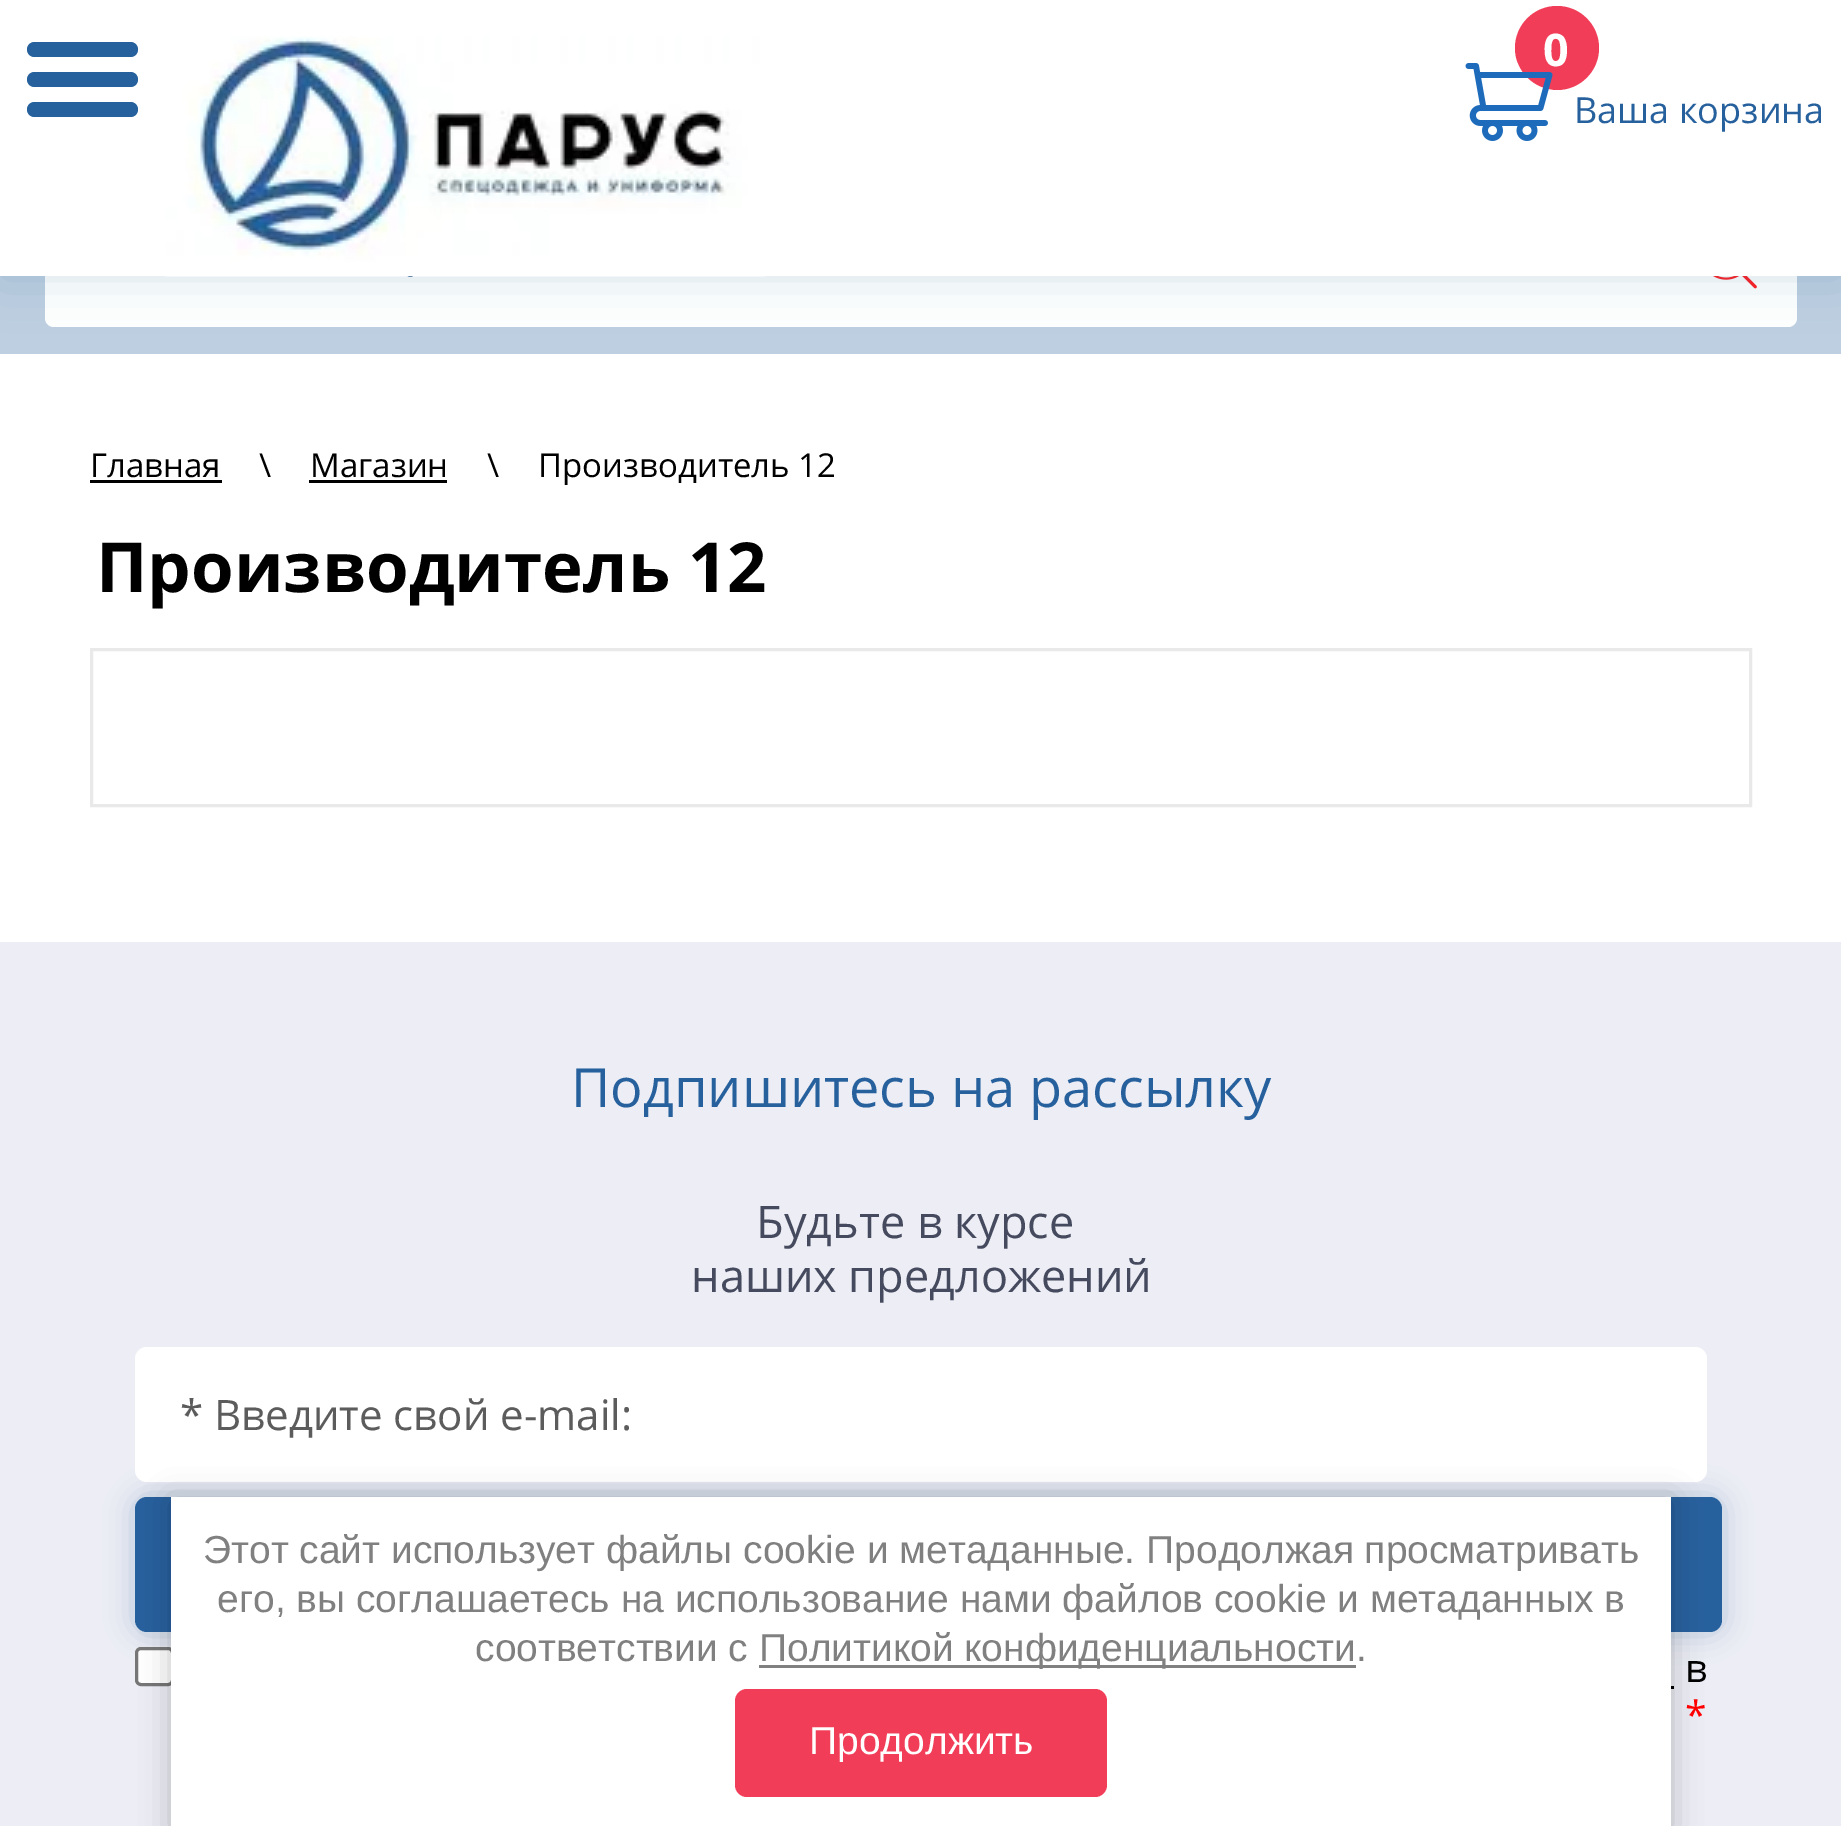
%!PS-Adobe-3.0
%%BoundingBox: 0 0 1841 1826
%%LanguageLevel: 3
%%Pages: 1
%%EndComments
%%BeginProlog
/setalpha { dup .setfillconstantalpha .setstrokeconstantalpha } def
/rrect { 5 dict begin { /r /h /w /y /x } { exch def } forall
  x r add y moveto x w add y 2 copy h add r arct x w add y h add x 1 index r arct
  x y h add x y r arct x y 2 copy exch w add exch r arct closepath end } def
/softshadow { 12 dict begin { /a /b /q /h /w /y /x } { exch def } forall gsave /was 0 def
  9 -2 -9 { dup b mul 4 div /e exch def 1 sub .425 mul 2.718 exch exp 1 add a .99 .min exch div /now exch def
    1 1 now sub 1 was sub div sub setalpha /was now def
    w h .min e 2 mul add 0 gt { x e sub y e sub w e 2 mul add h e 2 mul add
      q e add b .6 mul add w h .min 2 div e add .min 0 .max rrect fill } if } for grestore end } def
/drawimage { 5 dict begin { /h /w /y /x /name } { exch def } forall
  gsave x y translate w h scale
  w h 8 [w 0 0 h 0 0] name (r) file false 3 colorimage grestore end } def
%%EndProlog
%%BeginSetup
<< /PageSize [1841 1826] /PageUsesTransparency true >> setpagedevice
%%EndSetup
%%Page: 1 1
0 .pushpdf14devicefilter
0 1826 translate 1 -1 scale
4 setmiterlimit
1 setgray
0 0 1841 1826 rectfill
0.741 0.812 0.882 setrgbcolor
0 276 1841 78 rectfill
1 setgray
45 192 1752 135 9 rrect fill
(images/3.raw) 1713 276 44 13 drawimage
0.153 0.38 0.616 setrgbcolor
0 0 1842 276 0 25.5 0.2 softshadow
1 setgray
0 0 1841 276 rectfill
0.153 0.38 0.616 setrgbcolor
27 42 111 15 7.5 rrect fill
27 72 111 15 7.5 rrect fill
27 102 111 15 7.5 rrect fill
(images/1.raw) 165 36 600 241 drawimage
0.949 0.239 0.345 setrgbcolor
newpath 1557 48 42 0 360 arc closepath fill
0 setgray
90 480 132 3 rectfill
309 480 138 3 rectfill
0.914 setgray
3 setlinewidth
91.5 649.5 1659 156 rectstroke
0.929 0.933 0.961 setrgbcolor
0 942 1841 884 rectfill
0.153 0.38 0.616 setrgbcolor
132 1494 1593 141 15 13.5 0.25 softshadow
1 setgray
135 1347 1572 135 12 rrect fill
0.153 0.38 0.616 setrgbcolor
135 1497 1587 135 12 rrect fill
1 setgray
136.5 1648.5 36 36 4.5 rrect gsave fill grestore
0.463 setgray
stroke
0 setgray
1671 1686 3 3 rectfill
171 1500 1500 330 0 15 0.23 softshadow
1 setgray
171 1497 1500 329 rectfill
0.502 setgray
759 1665 597 3 rectfill
0.949 0.239 0.345 setrgbcolor
735 1689 372 108 12 rrect fill
/OpenSans-Bold [45 0 0 -45 0 0] selectfont
1 setgray
1543 66 moveto (0) show
(images/2.raw) 1465 63 88 78 drawimage
/OpenSans-Regular [36 0 0 -36 0 0] selectfont
0.153 0.38 0.616 setrgbcolor
1574 123 moveto (Ваша корзина) show
/OpenSans-Regular [33 0 0 -33 0 0] selectfont
0 setgray
90 477 moveto (Главная) show
259 477 moveto (\\) show
310 477 moveto (Магазин) show
487 477 moveto (\\) show
538 477 moveto (Производитель 12) show
/OpenSans-Bold [69 0 0 -69 0 0] selectfont
96 592 moveto (Производитель 12) show
/OpenSans-Regular [54 0 0 -54 0 0] selectfont
0.153 0.38 0.616 setrgbcolor
571 1107 moveto (Подпишитесь на рассылку) show
/OpenSans-Regular [45 0 0 -45 0 0] selectfont
0.275 0.29 0.369 setrgbcolor
756 1238 moveto (Будьте в курсе) show
691 1292 moveto (наших предложений) show
/OpenSans-Regular [42 0 0 -42 0 0] selectfont
0.361 setgray
180 1430 moveto (* Введите свой e-mail:) show
/OpenSans-Regular [39 0 0 -39 0 0] selectfont
0 setgray
1685 1682 moveto (в) show
1 0 0 setrgbcolor
1685 1729 moveto (*) show
/LiberationSans-Regular [39 0 0 -39 0 0] selectfont
0.502 setgray
203 1563 moveto (Этот сайт использует файлы cookie и метаданные. Продолжая просматривать) show
217 1612 moveto (его, вы соглашаетесь на использование нами файлов cookie и метаданных в) show
475 1661 moveto (соответствии с) show
759 1661 moveto (Политикой конфиденциальности.) show
1 setgray
809 1754 moveto (Продолжить) show
.poppdf14devicefilter showpage
%%EOF
